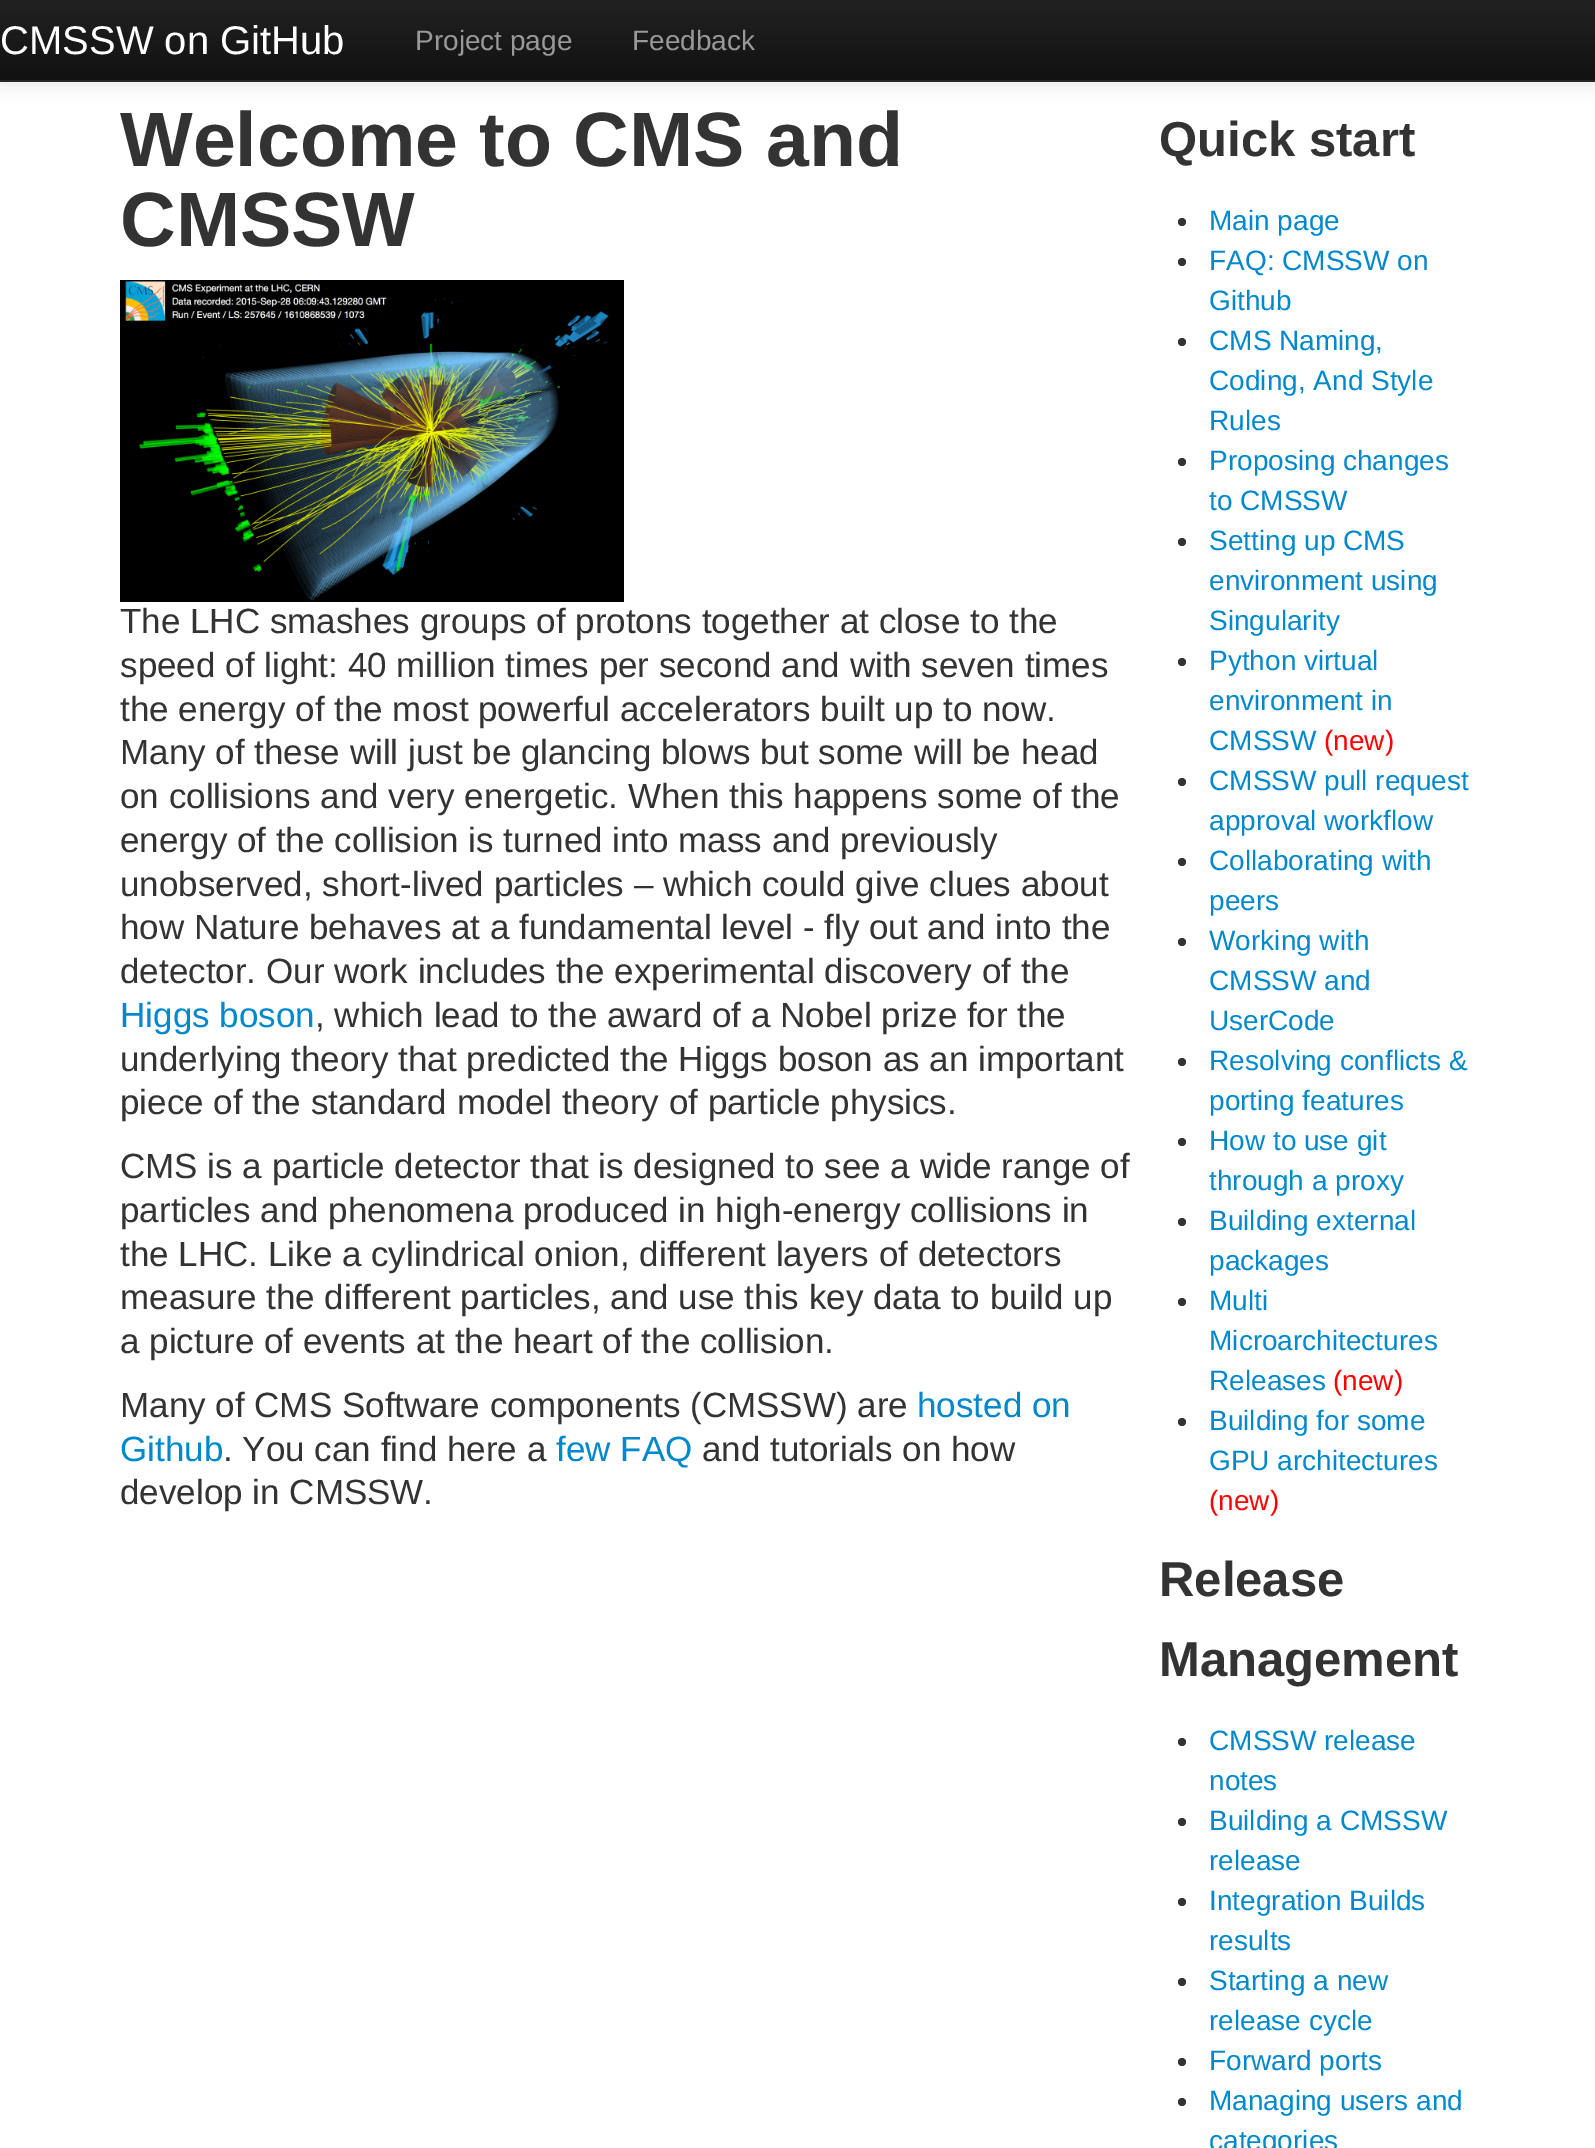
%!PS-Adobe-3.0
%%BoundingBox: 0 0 1595 2148
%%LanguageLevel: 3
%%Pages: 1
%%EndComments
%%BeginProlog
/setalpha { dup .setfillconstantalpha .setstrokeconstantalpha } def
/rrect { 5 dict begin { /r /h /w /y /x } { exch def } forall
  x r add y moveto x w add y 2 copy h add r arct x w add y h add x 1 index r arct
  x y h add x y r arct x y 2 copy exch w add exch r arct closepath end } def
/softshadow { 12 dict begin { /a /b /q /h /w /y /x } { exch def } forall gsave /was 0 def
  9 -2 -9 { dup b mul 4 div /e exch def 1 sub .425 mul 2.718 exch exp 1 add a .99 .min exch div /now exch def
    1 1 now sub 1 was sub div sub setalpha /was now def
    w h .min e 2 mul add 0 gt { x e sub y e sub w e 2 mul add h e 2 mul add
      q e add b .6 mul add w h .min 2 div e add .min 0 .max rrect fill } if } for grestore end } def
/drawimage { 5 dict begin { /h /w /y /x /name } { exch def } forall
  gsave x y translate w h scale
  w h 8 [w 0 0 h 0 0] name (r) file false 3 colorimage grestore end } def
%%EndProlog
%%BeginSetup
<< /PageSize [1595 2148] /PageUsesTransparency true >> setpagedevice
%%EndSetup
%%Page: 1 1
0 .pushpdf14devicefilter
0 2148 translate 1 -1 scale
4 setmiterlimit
1 setgray
0 0 1595 2148 rectfill
0 setgray
0 2 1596 82 0 10 0.1 softshadow
gsave newpath 0 0 moveto 1595 0 lineto 1595 80 lineto 0 80 lineto closepath clip newpath
<< /ShadingType 2 /ColorSpace /DeviceRGB /Coords [798 0 798 80] /Extend [true true] /Function << /FunctionType 2 /Domain [0 1] /C0 [0.133 0.133 0.133] /C1 [0.067 0.067 0.067] /N 1 >> >> shfill grestore
0.145 setgray
0 80 1595 2 rectfill
(images/1.raw) 120 280 504 322 drawimage
0.2 setgray
newpath 1182 222 4 0 360 arc closepath fill
newpath 1182 262 4 0 360 arc closepath fill
newpath 1182 342 4 0 360 arc closepath fill
newpath 1182 462 4 0 360 arc closepath fill
newpath 1182 542 4 0 360 arc closepath fill
newpath 1182 662 4 0 360 arc closepath fill
newpath 1182 782 4 0 360 arc closepath fill
newpath 1182 862 4 0 360 arc closepath fill
newpath 1182 942 4 0 360 arc closepath fill
newpath 1182 1062 4 0 360 arc closepath fill
newpath 1182 1142 4 0 360 arc closepath fill
newpath 1182 1222 4 0 360 arc closepath fill
newpath 1182 1302 4 0 360 arc closepath fill
newpath 1182 1422 4 0 360 arc closepath fill
newpath 1182 1742 4 0 360 arc closepath fill
newpath 1182 1822 4 0 360 arc closepath fill
newpath 1182 1902 4 0 360 arc closepath fill
newpath 1182 1982 4 0 360 arc closepath fill
newpath 1182 2062 4 0 360 arc closepath fill
newpath 1182 2102 4 0 360 arc closepath fill
/LiberationSans-Regular [40 0 0 -40 0 0] selectfont
1 setgray
0 54 moveto (CMSSW on GitHub) show
/LiberationSans-Regular [28 0 0 -28 0 0] selectfont
0.6 setgray
415 50 moveto (Project page) show
632 50 moveto (Feedback) show
/LiberationSans-Bold [77 0 0 -77 0 0] selectfont
0.2 setgray
120 166 moveto (Welcome to CMS and) show
120 246 moveto (CMSSW) show
/LiberationSans-Regular [35 0 0 -35 0 0] selectfont
120 633 moveto (The LHC smashes groups of protons together at close to the) show
120 677 moveto (speed of light: 40 million times per second and with seven times) show
120 721 moveto (the energy of the most powerful accelerators built up to now.) show
120 764 moveto (Many of these will just be glancing blows but some will be head) show
120 808 moveto (on collisions and very energetic. When this happens some of the) show
120 852 moveto (energy of the collision is turned into mass and previously) show
120 896 moveto (unobserved, short-lived particles – which could give clues about) show
120 939 moveto (how Nature behaves at a fundamental level - fly out and into the) show
120 983 moveto (detector. Our work includes the experimental discovery of the) show
0 0.533 0.8 setrgbcolor
120 1027 moveto (Higgs boson) show
0.2 setgray
315 1027 moveto (, which lead to the award of a Nobel prize for the) show
120 1071 moveto (underlying theory that predicted the Higgs boson as an important) show
120 1114 moveto (piece of the standard model theory of particle physics.) show
120 1178 moveto (CMS is a particle detector that is designed to see a wide range of) show
120 1222 moveto (particles and phenomena produced in high-energy collisions in) show
120 1266 moveto (the LHC. Like a cylindrical onion, different layers of detectors) show
120 1309 moveto (measure the different particles, and use this key data to build up) show
120 1353 moveto (a picture of events at the heart of the collision.) show
120 1417 moveto (Many of CMS Software components \(CMSSW\) are) show
0 0.533 0.8 setrgbcolor
917 1417 moveto (hosted on) show
120 1461 moveto (Github) show
0.2 setgray
223 1461 moveto (. You can find here a) show
0 0.533 0.8 setrgbcolor
556 1461 moveto (few FAQ) show
0.2 setgray
702 1461 moveto (and tutorials on how) show
120 1504 moveto (develop in CMSSW.) show
/LiberationSans-Bold [49 0 0 -49 0 0] selectfont
1159 156 moveto (Quick start) show
/LiberationSans-Regular [28 0 0 -28 0 0] selectfont
0 0.533 0.8 setrgbcolor
1209 230 moveto (Main page) show
1209 270 moveto (FAQ: CMSSW on) show
1209 310 moveto (Github) show
1209 350 moveto (CMS Naming,) show
1209 390 moveto (Coding, And Style) show
1209 430 moveto (Rules) show
1209 470 moveto (Proposing changes) show
1209 510 moveto (to CMSSW) show
1209 550 moveto (Setting up CMS) show
1209 590 moveto (environment using) show
1209 630 moveto (Singularity) show
1209 670 moveto (Python virtual) show
1209 710 moveto (environment in) show
1209 750 moveto (CMSSW) show
1 0 0 setrgbcolor
1324 750 moveto (\(new\)) show
0 0.533 0.8 setrgbcolor
1209 790 moveto (CMSSW pull request) show
1209 830 moveto (approval workflow) show
1209 870 moveto (Collaborating with) show
1209 910 moveto (peers) show
1209 950 moveto (Working with) show
1209 990 moveto (CMSSW and) show
1209 1030 moveto (UserCode) show
1209 1070 moveto (Resolving conflicts &) show
1209 1110 moveto (porting features) show
1209 1150 moveto (How to use git) show
1209 1190 moveto (through a proxy) show
1209 1230 moveto (Building external) show
1209 1270 moveto (packages) show
1209 1310 moveto (Multi) show
1209 1350 moveto (Microarchitectures) show
1209 1390 moveto (Releases) show
1 0 0 setrgbcolor
1333 1390 moveto (\(new\)) show
0 0.533 0.8 setrgbcolor
1209 1430 moveto (Building for some) show
1209 1470 moveto (GPU architectures) show
1 0 0 setrgbcolor
1209 1510 moveto (\(new\)) show
/LiberationSans-Bold [49 0 0 -49 0 0] selectfont
0.2 setgray
1159 1596 moveto (Release) show
1159 1676 moveto (Management) show
/LiberationSans-Regular [28 0 0 -28 0 0] selectfont
0 0.533 0.8 setrgbcolor
1209 1750 moveto (CMSSW release) show
1209 1790 moveto (notes) show
1209 1830 moveto (Building a CMSSW) show
1209 1870 moveto (release) show
1209 1910 moveto (Integration Builds) show
1209 1950 moveto (results) show
1209 1990 moveto (Starting a new) show
1209 2030 moveto (release cycle) show
1209 2070 moveto (Forward ports) show
1209 2110 moveto (Managing users and) show
1209 2150 moveto (categories) show
.poppdf14devicefilter showpage
%%EOF
